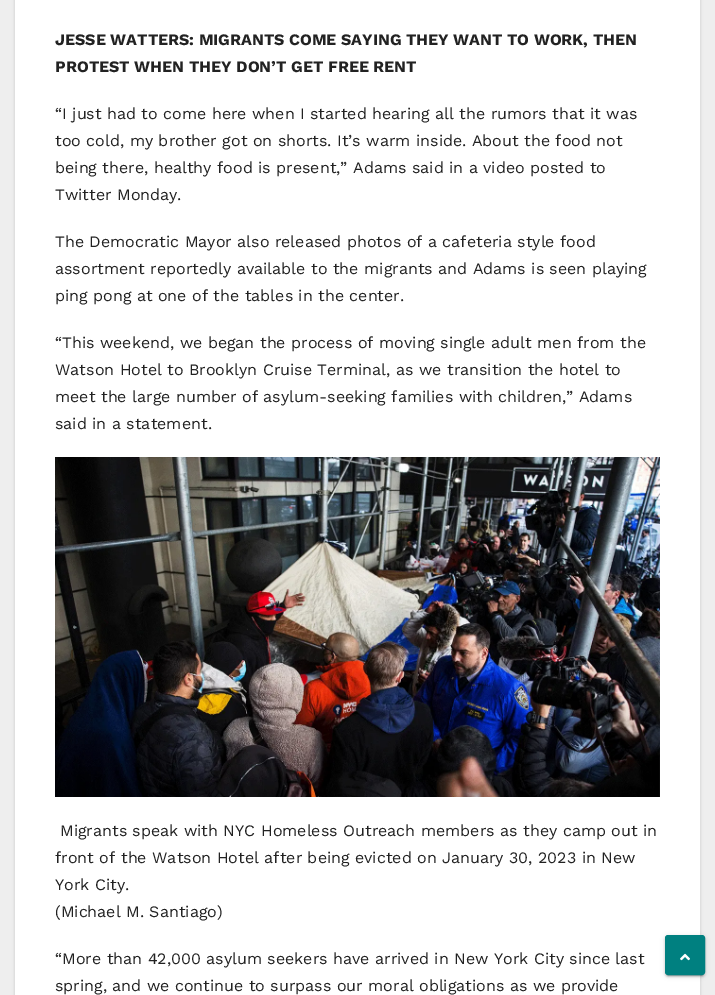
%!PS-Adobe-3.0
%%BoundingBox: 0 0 715 995
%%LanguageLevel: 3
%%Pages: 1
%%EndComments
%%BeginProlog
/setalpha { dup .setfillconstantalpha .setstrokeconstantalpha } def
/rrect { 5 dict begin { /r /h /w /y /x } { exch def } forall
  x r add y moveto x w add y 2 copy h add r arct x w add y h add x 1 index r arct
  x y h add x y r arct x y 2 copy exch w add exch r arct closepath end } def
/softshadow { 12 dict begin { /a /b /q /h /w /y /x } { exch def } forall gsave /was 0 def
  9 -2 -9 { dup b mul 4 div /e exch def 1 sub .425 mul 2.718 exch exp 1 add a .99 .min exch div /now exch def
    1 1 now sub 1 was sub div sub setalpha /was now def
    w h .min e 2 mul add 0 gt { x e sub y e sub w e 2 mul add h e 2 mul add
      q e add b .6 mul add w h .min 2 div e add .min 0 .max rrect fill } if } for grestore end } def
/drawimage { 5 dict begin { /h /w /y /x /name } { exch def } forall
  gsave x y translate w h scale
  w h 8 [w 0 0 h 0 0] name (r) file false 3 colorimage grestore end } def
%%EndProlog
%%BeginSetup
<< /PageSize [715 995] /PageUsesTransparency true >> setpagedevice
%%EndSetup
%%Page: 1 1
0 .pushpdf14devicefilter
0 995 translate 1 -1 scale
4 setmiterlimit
0.933 setgray
0 0 715 995 rectfill
0 setgray
15 -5 685 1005 0 1.5 0.15 softshadow
1 setgray
15 0 685 995 rectfill
(images/1.raw) 55 457 605 340 drawimage
0 setgray
665 936 40 40 3 2.5 0.12 softshadow
667 940 36 36 1 0.5 0.2 softshadow
665 937 40 40 3 1 0.14 softshadow
0 0.502 0.502 setrgbcolor
666 936 38 38 2 rrect gsave fill grestore
2 setlinewidth
stroke
(images/2.raw) 680 953 10 8 drawimage
/WorkSans-Bold [16 0 0 -16 0 0] selectfont
0.133 setgray
55 45 moveto (JESSE WATTERS: MIGRANTS COME SAYING THEY WANT TO WORK, THEN) show
55 72 moveto (PROTEST WHEN THEY DON’T GET FREE RENT) show
/WorkSans-Regular [16 0 0 -16 0 0] selectfont
55 119 moveto (“I just had to come here when I started hearing all the rumors that it was) show
55 146 moveto (too cold, my brother got on shorts. It’s warm inside. About the food not) show
55 173 moveto (being there, healthy food is present,” Adams said in a video posted to) show
55 200 moveto (Twitter Monday.) show
55 247 moveto (The Democratic Mayor also released photos of a cafeteria style food) show
55 274 moveto (assortment reportedly available to the migrants and Adams is seen playing) show
55 301 moveto (ping pong at one of the tables in the center.) show
55 348 moveto (“This weekend, we began the process of moving single adult men from the) show
55 375 moveto (Watson Hotel to Brooklyn Cruise Terminal, as we transition the hotel to) show
55 402 moveto (meet the large number of asylum-seeking families with children,” Adams) show
55 429 moveto (said in a statement.) show
60 836 moveto (Migrants speak with NYC Homeless Outreach members as they camp out in) show
55 863 moveto (front of the Watson Hotel after being evicted on January 30, 2023 in New) show
55 890 moveto (York City.) show
55 917 moveto (\(Michael M. Santiago\)) show
55 964 moveto (“More than 42,000 asylum seekers have arrived in New York City since last) show
55 991 moveto (spring, and we continue to surpass our moral obligations as we provide) show
.poppdf14devicefilter showpage
%%EOF
